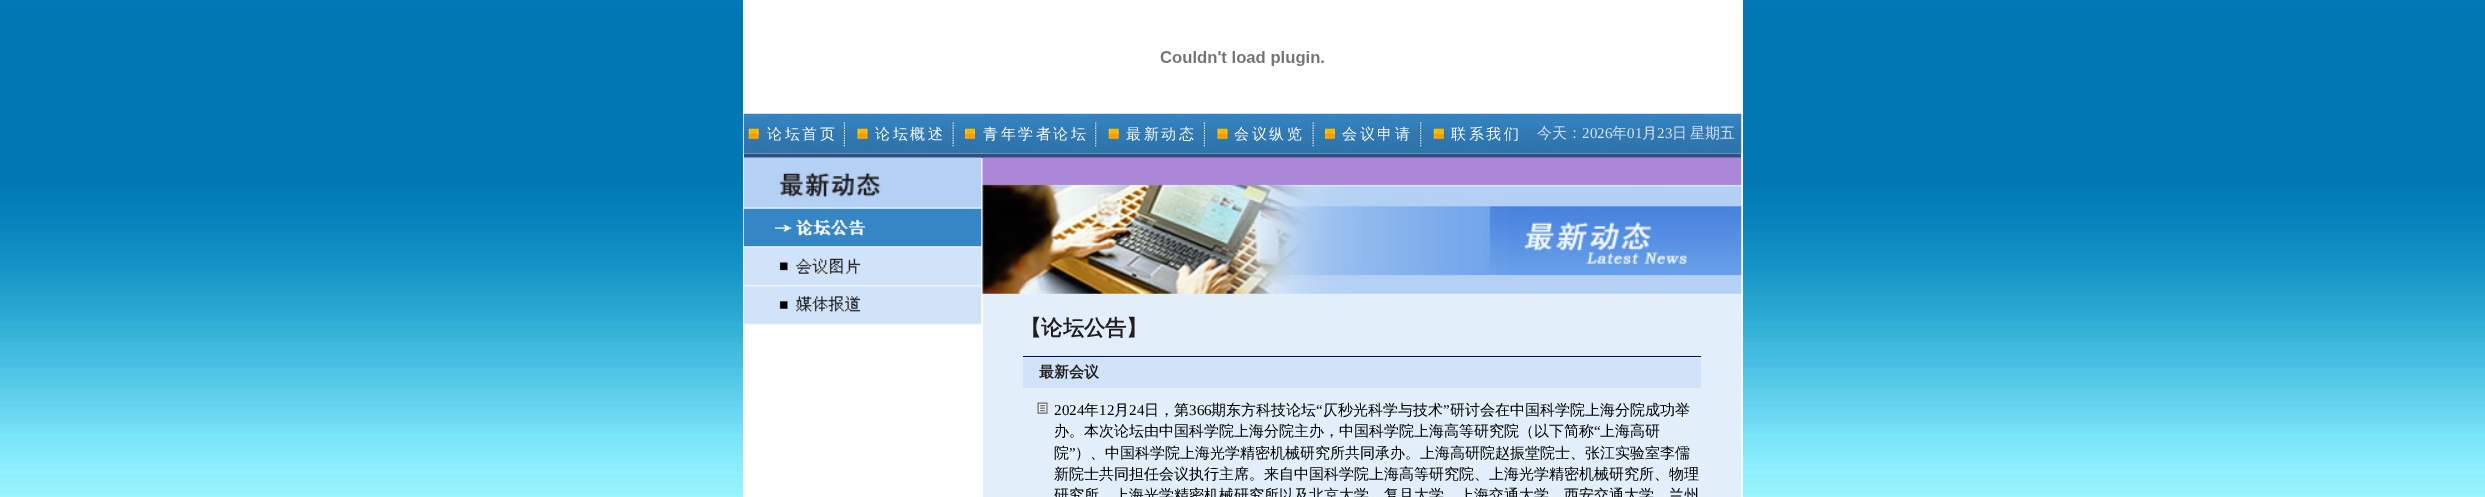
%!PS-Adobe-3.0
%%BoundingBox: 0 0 2485 497
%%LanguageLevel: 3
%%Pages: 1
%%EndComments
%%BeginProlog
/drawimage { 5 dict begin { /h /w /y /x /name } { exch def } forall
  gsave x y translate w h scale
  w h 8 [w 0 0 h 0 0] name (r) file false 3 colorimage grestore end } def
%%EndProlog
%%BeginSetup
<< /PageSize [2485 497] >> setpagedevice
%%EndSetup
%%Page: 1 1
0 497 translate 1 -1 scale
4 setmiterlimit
1 setgray
0 0 2485 497 rectfill
(images/1.raw) 0 0 2485 497 drawimage
743 0 1000 497 rectfill
(images/2.raw) 1160 51 164 15 drawimage
(images/3.raw) 743 113 999 41 drawimage
(images/4.raw) 748 128 11 11 drawimage
(images/5.raw) 842 122 3 25 drawimage
(images/6.raw) 857 128 11 11 drawimage
(images/7.raw) 951 122 3 25 drawimage
(images/8.raw) 965 128 10 11 drawimage
(images/9.raw) 1093 122 4 25 drawimage
(images/10.raw) 1108 128 11 11 drawimage
(images/11.raw) 1202 122 3 25 drawimage
(images/12.raw) 1217 128 11 11 drawimage
(images/13.raw) 1311 122 3 25 drawimage
(images/14.raw) 1325 128 10 11 drawimage
(images/15.raw) 1418 122 4 25 drawimage
(images/16.raw) 1433 128 11 11 drawimage
0.204 0.306 0.498 setrgbcolor
744 154 997 4 rectfill
(images/17.raw) 743 157 239 51 drawimage
0.945 0.969 0.992 setrgbcolor
744 208 237 1 rectfill
744 246 237 1 rectfill
(images/18.raw) 743 208 239 39 drawimage
(images/19.raw) 743 247 239 38 drawimage
744 285 237 1 rectfill
(images/20.raw) 743 286 239 38 drawimage
744 324 237 1 rectfill
0.89 0.933 0.984 setrgbcolor
983 293 758 204 rectfill
(images/21.raw) 982 157 760 137 drawimage
0 0 0.498 setrgbcolor
1023 356 678 1 rectfill
0.82 0.89 0.976 setrgbcolor
1023 358 678 30 rectfill
(images/22.raw) 1037 402 11 12 drawimage
/WenQuanYiZenHei-Medium [15 0 0 -15 0 0] selectfont
1 setgray
767 139 moveto 2.5 0 (论坛首页) ashow
875 139 moveto 2.5 0 (论坛概述) ashow
983 139 moveto 2.5 0 (青年学者论坛) ashow
1126 139 moveto 2.5 0 (最新动态) ashow
1234 139 moveto 2.5 0 (会议纵览) ashow
1342 139 moveto 2.5 0 (会议申请) ashow
1451 139 moveto 2.5 0 (联系我们) ashow
0.839 0.89 0.965 setrgbcolor
1537 138 moveto (今天：) show
/LiberationSerif-Regular [15 0 0 -15 0 0] selectfont
1582 138 moveto (2026) show
/WenQuanYiZenHei-Medium [15 0 0 -15 0 0] selectfont
1612 138 moveto (年) show
/LiberationSerif-Regular [15 0 0 -15 0 0] selectfont
1627 138 moveto (01) show
/WenQuanYiZenHei-Medium [15 0 0 -15 0 0] selectfont
1642 138 moveto (月) show
/LiberationSerif-Regular [15 0 0 -15 0 0] selectfont
1657 138 moveto (23) show
/WenQuanYiZenHei-Medium [15 0 0 -15 0 0] selectfont
1672 138 moveto -1 0 32 (日 星期五) widthshow
/WenQuanYiZenHei-Bold [21.25 0 0 -21.25 0 0] selectfont
0.133 0.118 0.122 setrgbcolor
1020 335 moveto (【论坛公告】) show
/WenQuanYiZenHei-Bold [15 0 0 -15 0 0] selectfont
1039 377 moveto (最新会议) show
/LiberationSerif-Regular [15 0 0 -15 0 0] selectfont
0 setgray
1054 415 moveto (2024) show
/WenQuanYiZenHei-Medium [15 0 0 -15 0 0] selectfont
1084 415 moveto (年) show
/LiberationSerif-Regular [15 0 0 -15 0 0] selectfont
1099 415 moveto (12) show
/WenQuanYiZenHei-Medium [15 0 0 -15 0 0] selectfont
1114 415 moveto (月) show
/LiberationSerif-Regular [15 0 0 -15 0 0] selectfont
1129 415 moveto (24) show
/WenQuanYiZenHei-Medium [15 0 0 -15 0 0] selectfont
1144 415 moveto (日，第) show
/LiberationSerif-Regular [15 0 0 -15 0 0] selectfont
1189 415 moveto (366) show
/WenQuanYiZenHei-Medium [15 0 0 -15 0 0] selectfont
1211 415 moveto (期东方科技论坛) show
/LiberationSerif-Regular [15 0 0 -15 0 0] selectfont
1316 415 moveto (“) show
/WenQuanYiZenHei-Medium [15 0 0 -15 0 0] selectfont
1323 415 moveto (仄秒光科学与技术) show
/LiberationSerif-Regular [15 0 0 -15 0 0] selectfont
1443 415 moveto (”) show
/WenQuanYiZenHei-Medium [15 0 0 -15 0 0] selectfont
1450 415 moveto (研讨会在中国科学院上海分院成功举) show
1054 436 moveto (办。本次论坛由中国科学院上海分院主办，中国科学院上海高等研究院（以下简称) show
/LiberationSerif-Regular [15 0 0 -15 0 0] selectfont
1594 436 moveto (“) show
/WenQuanYiZenHei-Medium [15 0 0 -15 0 0] selectfont
1600 436 moveto (上海高研) show
1054 458 moveto (院) show
/LiberationSerif-Regular [15 0 0 -15 0 0] selectfont
1069 458 moveto (”) show
/WenQuanYiZenHei-Medium [15 0 0 -15 0 0] selectfont
1075 458 moveto (）、中国科学院上海光学精密机械研究所共同承办。上海高研院赵振堂院士、张江实验室李儒) show
1054 479 moveto (新院士共同担任会议执行主席。来自中国科学院上海高等研究院、上海光学精密机械研究所、物理) show
1054 500 moveto (研究所、上海光学精密机械研究所以及北京大学、复旦大学、上海交通大学、西安交通大学、兰州) show
showpage
%%EOF
